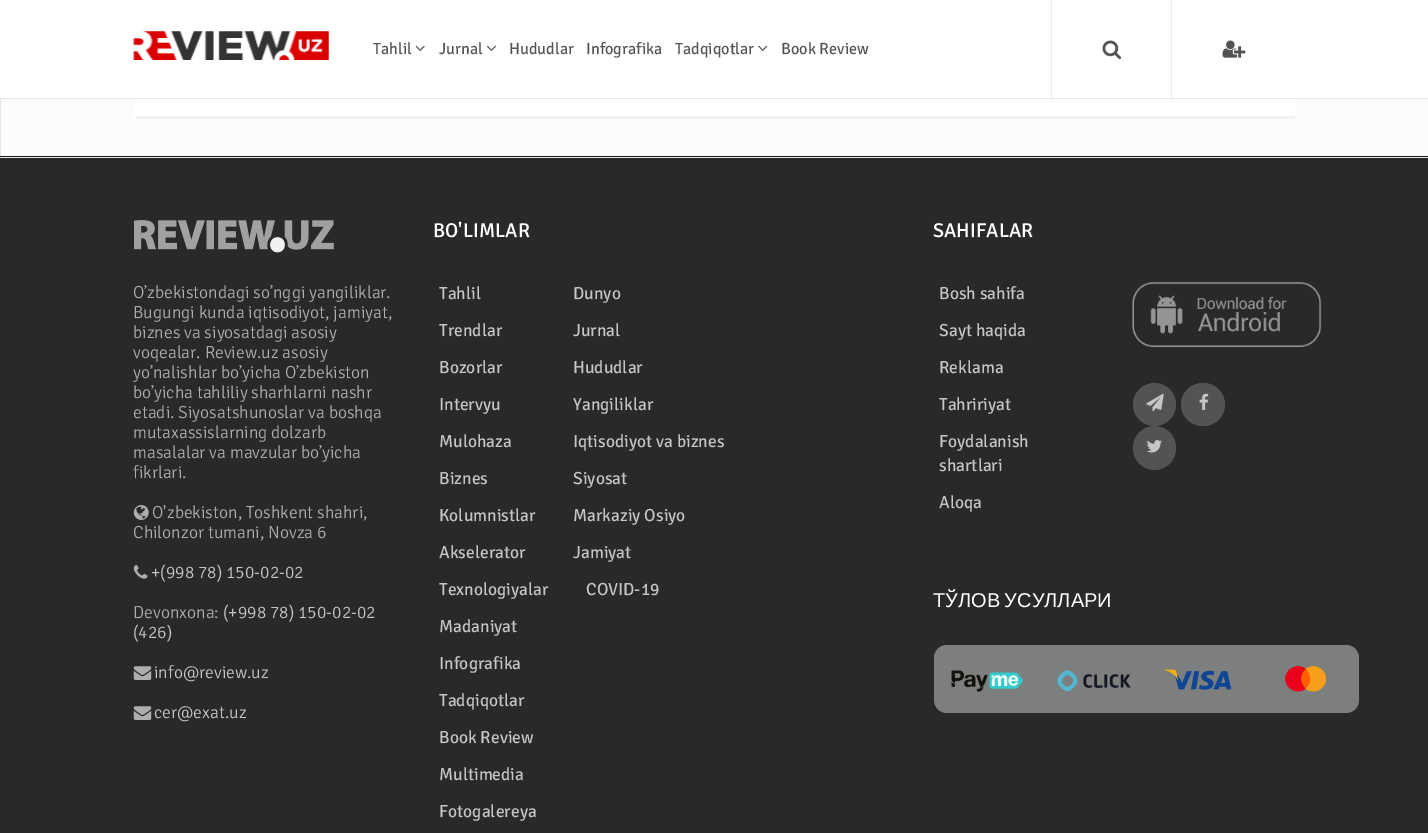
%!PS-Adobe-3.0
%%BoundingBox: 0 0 1428 833
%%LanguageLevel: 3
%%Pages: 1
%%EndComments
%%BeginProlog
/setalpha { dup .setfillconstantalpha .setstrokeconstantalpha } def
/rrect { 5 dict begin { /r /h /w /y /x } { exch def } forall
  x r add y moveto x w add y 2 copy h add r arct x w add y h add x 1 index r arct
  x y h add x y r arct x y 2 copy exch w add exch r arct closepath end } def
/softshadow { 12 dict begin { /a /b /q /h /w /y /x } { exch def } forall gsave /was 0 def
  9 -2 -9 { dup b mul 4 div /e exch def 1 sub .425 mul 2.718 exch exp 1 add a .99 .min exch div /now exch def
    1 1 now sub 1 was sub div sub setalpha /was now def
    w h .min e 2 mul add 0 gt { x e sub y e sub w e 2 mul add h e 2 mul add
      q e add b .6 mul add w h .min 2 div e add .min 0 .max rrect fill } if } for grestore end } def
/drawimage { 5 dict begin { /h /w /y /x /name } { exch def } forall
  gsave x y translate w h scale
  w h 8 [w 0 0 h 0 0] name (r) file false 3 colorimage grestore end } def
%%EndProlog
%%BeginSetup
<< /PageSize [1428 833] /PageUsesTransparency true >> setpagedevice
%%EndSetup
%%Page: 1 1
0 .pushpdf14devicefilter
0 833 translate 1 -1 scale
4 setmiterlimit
0.949 0.953 0.961 setrgbcolor
0 0 1428 833 rectfill
0.102 0.106 0.11 setrgbcolor
0 156 1428 1 rectfill
0.153 0.161 0.165 setrgbcolor
0 158 1428 675 rectfill
0 setgray
0 -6 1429 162 0 2 0.18 softshadow
0.984 0.988 0.996 setrgbcolor
1 99 1427 57 rectfill
0.894 setgray
0 99 1 57 rectfill
1 setgray
134 -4 1162 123 4 rrect fill
0.949 0.953 0.961 setrgbcolor
136 116 1159 3 rectfill
1 setgray
0 0 1428 98 rectfill
0.902 setgray
0 98 1428 1 rectfill
(images/1.raw) 133 31 196 29 drawimage
(images/2.raw) 415 45 10 6 drawimage
(images/3.raw) 487 45 9 6 drawimage
(images/4.raw) 758 45 10 6 drawimage
0.922 0.925 0.933 setrgbcolor
1051 0 1 98 rectfill
(images/5.raw) 1102 40 20 20 drawimage
1171 0 1 98 rectfill
(images/6.raw) 1222 40 24 18 drawimage
(images/7.raw) 134 220 200 33 drawimage
(images/8.raw) 133 505 16 15 drawimage
(images/9.raw) 133 565 15 14 drawimage
(images/10.raw) 133 666 19 14 drawimage
(images/10.raw) 133 706 19 14 drawimage
(images/11.raw) 1132 282 190 65 drawimage
0.333 0.322 0.329 setrgbcolor
newpath 1154.5 404.5 21.5 0 360 arc closepath fill
(images/12.raw) 1146 393 18 19 drawimage
1181 383 44 43 21.5 rrect fill
(images/13.raw) 1199 393 10 17 drawimage
1133 426 43 44 21.5 rrect fill
(images/14.raw) 1147 440 15 13 drawimage
0.137 0.145 0.149 setrgbcolor
1133 490 162 1 rectfill
0.49 0.498 0.498 setrgbcolor
934 645 425 68 13 rrect fill
(images/15.raw) 951 670 72 22 drawimage
(images/16.raw) 1057 670 74 22 drawimage
(images/17.raw) 1164 669 68 21 drawimage
(images/18.raw) 1285 666 41 26 drawimage
/SignikaNegative-Regular [16.25 0 0 -16.25 0 0] selectfont
0.333 0.322 0.329 setrgbcolor
373 54 moveto (Tahlil) show
439 54 moveto (Jurnal) show
509 54 moveto (Hududlar) show
586 54 moveto (Infografika) show
675 54 moveto (Tadqiqotlar) show
781 54 moveto (Book Review) show
/SignikaNegative-Light [17.5 0 0 -17.5 0 0] selectfont
0.682 setgray
133 298 moveto (Oʼzbekistondagi soʼnggi yangiliklar.) show
133 318 moveto (Bugungi kunda iqtisodiyot, jamiyat,) show
133 338 moveto (biznes va siyosatdagi asosiy) show
133 358 moveto (voqealar. Review.uz asosiy) show
133 378 moveto (yoʼnalishlar boʼyicha Oʼzbekiston) show
133 398 moveto (boʼyicha tahliliy sharhlarni nashr) show
133 418 moveto (etadi. Siyosatshunoslar va boshqa) show
133 438 moveto (mutaxassislarning dolzarb) show
133 458 moveto (masalalar va mavzular boʼyicha) show
133 478 moveto (fikrlari.) show
152 518 moveto (O'zbekiston, Toshkent shahri,) show
133 538 moveto (Chilonzor tumani, Novza 6) show
0.776 setgray
151 578 moveto (+\(998 78\) 150-02-02) show
0.682 setgray
133 618 moveto (Devonxona:) show
0.776 setgray
223 618 moveto (\(+998 78\) 150-02-02) show
133 638 moveto (\(426\)) show
154 678 moveto (info@review.uz) show
154 718 moveto (cer@exat.uz) show
/SignikaNegative-Medium [20 0 0 -20 0 0] selectfont
1 setgray
433 237 moveto (BO'LIMLAR) show
/SignikaNegative-Regular [17.5 0 0 -17.5 0 0] selectfont
0.776 setgray
439 299 moveto (Tahlil) show
439 336 moveto (Trendlar) show
439 373 moveto (Bozorlar) show
439 410 moveto (Intervyu) show
439 447 moveto (Mulohaza) show
439 484 moveto (Biznes) show
439 521 moveto (Kolumnistlar) show
439 558 moveto (Akselerator) show
573 299 moveto (Dunyo) show
573 336 moveto (Jurnal) show
573 373 moveto (Hududlar) show
573 410 moveto (Yangiliklar) show
573 447 moveto (Iqtisodiyot va biznes) show
573 484 moveto (Siyosat) show
573 521 moveto (Markaziy Osiyo) show
573 558 moveto (Jamiyat) show
439 595 moveto (Texnologiyalar) show
439 632 moveto (Madaniyat) show
439 669 moveto (Infografika) show
439 706 moveto (Tadqiqotlar) show
439 743 moveto (Book Review) show
439 780 moveto (Multimedia) show
439 817 moveto (Fotogalereya) show
586 595 moveto (COVID-19) show
/SignikaNegative-Medium [20 0 0 -20 0 0] selectfont
1 setgray
933 237 moveto (SAHIFALAR) show
/SignikaNegative-Regular [17.5 0 0 -17.5 0 0] selectfont
0.776 setgray
939 299 moveto (Bosh sahifa) show
939 336 moveto (Sayt haqida) show
939 373 moveto (Reklama) show
939 410 moveto (Tahririyat) show
939 447 moveto (Foydalanish) show
939 471 moveto (shartlari) show
939 508 moveto (Aloqa) show
/LiberationSans-Regular [20 0 0 -20 0 0] selectfont
1 setgray
933 607 moveto -1 0 32 (ТЎЛОВ УСУЛЛАРИ) widthshow
.poppdf14devicefilter showpage
%%EOF
